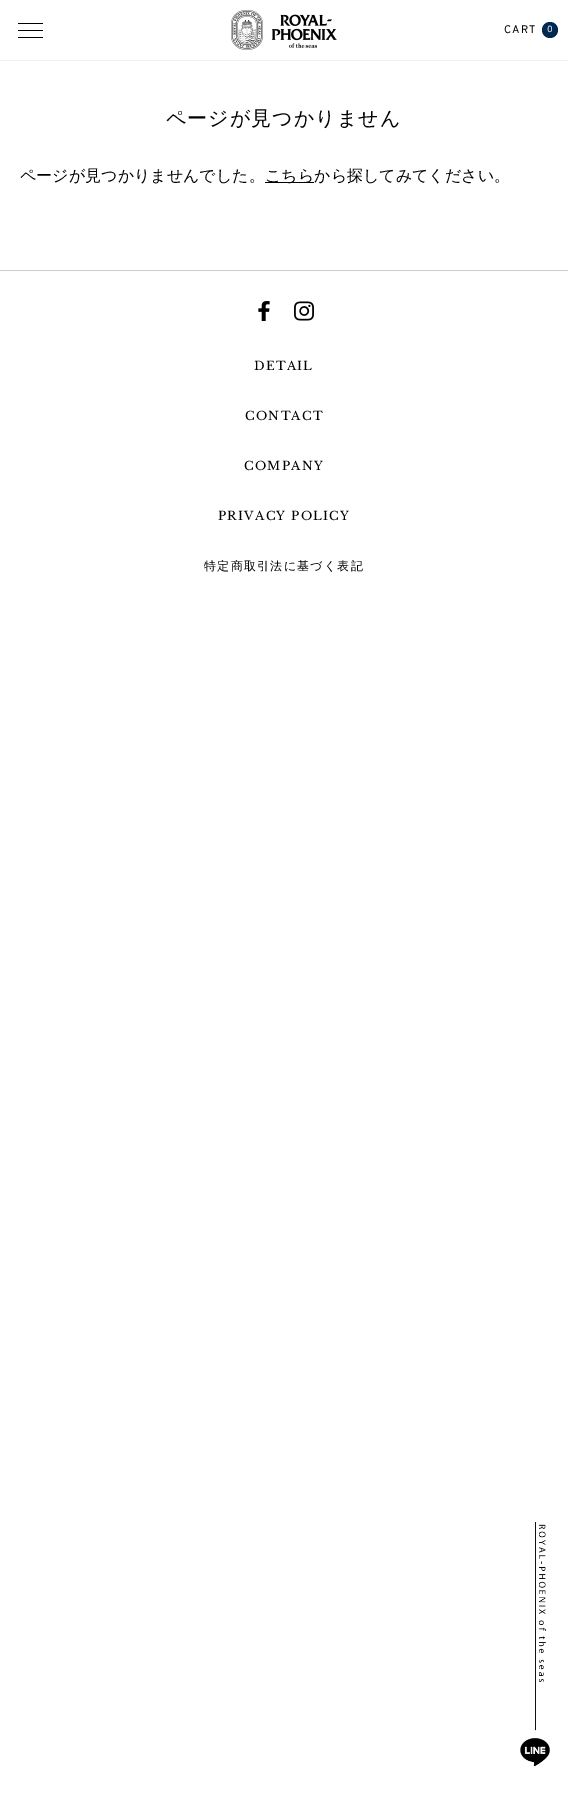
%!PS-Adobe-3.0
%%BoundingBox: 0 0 568 1794
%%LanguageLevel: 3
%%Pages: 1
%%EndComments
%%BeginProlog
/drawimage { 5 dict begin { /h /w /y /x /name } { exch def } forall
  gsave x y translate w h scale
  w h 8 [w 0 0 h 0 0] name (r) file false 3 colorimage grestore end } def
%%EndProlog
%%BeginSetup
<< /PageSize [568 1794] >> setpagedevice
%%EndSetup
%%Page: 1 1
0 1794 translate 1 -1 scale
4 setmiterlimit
1 setgray
0 0 568 1794 rectfill
0.949 setgray
0 60 568 1 rectfill
0 setgray
18 23 25 1 rectfill
18 30 25 1 rectfill
18 37 25 1 rectfill
(images/1.raw) 231 10 106 40 drawimage
0 0.157 0.314 setrgbcolor
newpath 550 30 8 0 360 arc closepath fill
0 setgray
265 182 49 1 rectfill
0.8 setgray
0 270 568 1 rectfill
(images/2.raw) 258 301 12 20 drawimage
(images/3.raw) 294 301 20 20 drawimage
(images/4.raw) 520 1522 30 245 drawimage
/Overpass-Regular [11 0 0 -11 0 0] selectfont
0 setgray
504 33 moveto 1 0 (CART) ashow
/Overpass-Regular [9 0 0 -9 0 0] selectfont
1 setgray
547 32 moveto 1 0 (0) ashow
/WenQuanYiZenHei-Medium [20 0 0 -20 0 0] selectfont
0 setgray
166 125 moveto 1 0 (ページが見つかりません) ashow
/WenQuanYiZenHei-Medium [16 0 0 -16 0 0] selectfont
20 181 moveto (ページが見つかりませんでした。) show
265 181 moveto (こちらから探してみてください。) show
/LibreBaskerville-Regular [12 0 0 -12 0 0] selectfont
254 370 moveto 1.25 0 (DETAIL) ashow
245 420 moveto 1.25 0 (CONTACT) ashow
244 470 moveto 1.25 0 (COMPANY) ashow
218 520 moveto 1.25 0 (PRIVACY POLICY) ashow
/WenQuanYiZenHei-Medium [12 0 0 -12 0 0] selectfont
204 570 moveto 1.25 0 (特定商取引法に基づく表記) ashow
showpage
%%EOF
